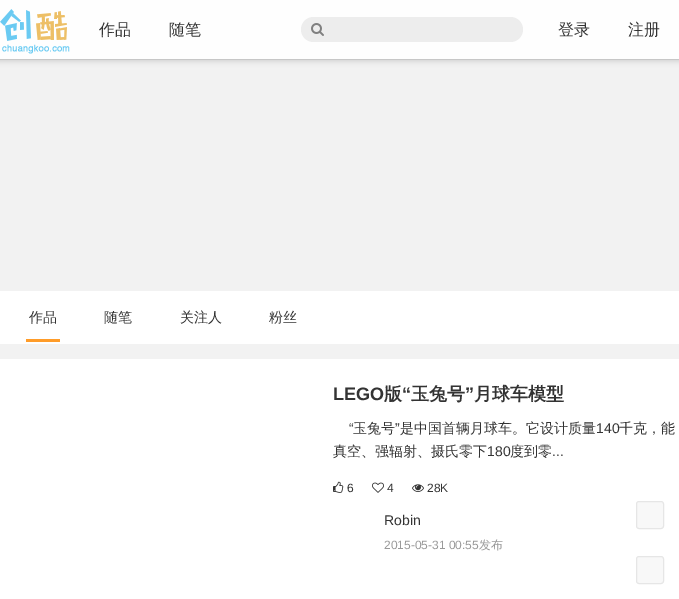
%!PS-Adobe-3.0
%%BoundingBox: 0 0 679 599
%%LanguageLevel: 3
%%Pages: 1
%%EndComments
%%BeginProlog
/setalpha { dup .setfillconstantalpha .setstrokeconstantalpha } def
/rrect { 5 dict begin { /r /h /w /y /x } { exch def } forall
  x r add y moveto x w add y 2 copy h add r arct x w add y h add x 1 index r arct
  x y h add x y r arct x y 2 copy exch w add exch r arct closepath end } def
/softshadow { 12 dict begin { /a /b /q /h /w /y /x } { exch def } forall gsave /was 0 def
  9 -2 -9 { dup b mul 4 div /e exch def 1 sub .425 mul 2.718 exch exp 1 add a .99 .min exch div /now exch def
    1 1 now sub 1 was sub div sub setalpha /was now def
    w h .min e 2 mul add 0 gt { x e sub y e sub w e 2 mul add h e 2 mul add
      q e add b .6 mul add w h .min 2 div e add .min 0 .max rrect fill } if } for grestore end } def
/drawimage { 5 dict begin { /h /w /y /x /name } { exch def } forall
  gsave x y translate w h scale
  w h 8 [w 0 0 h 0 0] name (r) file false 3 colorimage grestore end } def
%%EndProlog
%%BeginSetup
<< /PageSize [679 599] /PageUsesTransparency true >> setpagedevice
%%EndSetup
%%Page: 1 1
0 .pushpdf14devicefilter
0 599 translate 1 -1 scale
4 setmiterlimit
0.949 setgray
0 0 679 599 rectfill
0 setgray
-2 -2 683 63 0 3 0.15 softshadow
0 0 679 59 0 0.5 0.3 softshadow
0.996 setgray
0 0 679 59 rectfill
(images/1.raw) 0 9 70 45 drawimage
0.929 setgray
301 17 222 25 12.5 rrect fill
(images/2.raw) 311 23 13 13 drawimage
1 setgray
0 291 679 53 rectfill
1 0.612 0.161 setrgbcolor
26 339 34 3 rectfill
1 setgray
0 359 679 240 rectfill
(images/3.raw) 333 481 11 12 drawimage
(images/4.raw) 372 482 12 11 drawimage
(images/5.raw) 412 484 12 8 drawimage
0.973 setgray
636.5 501.5 27 27 2.5 rrect gsave fill grestore
0.902 setgray
stroke
0.973 setgray
636.5 556.5 27 27 2.5 rrect gsave fill grestore
0.902 setgray
stroke
/WenQuanYiZenHei-Medium [16 0 0 -16 0 0] selectfont
0.2 setgray
99 35 moveto (作品) show
169 35 moveto (随笔) show
558 35 moveto (登录) show
628 35 moveto (注册) show
/WenQuanYiZenHei-Medium [14 0 0 -14 0 0] selectfont
29 322 moveto (作品) show
104 322 moveto (随笔) show
180 322 moveto (关注人) show
269 322 moveto (粉丝) show
/LiberationSans-Bold [18 0 0 -18 0 0] selectfont
333 400 moveto (LEGO) show
/WenQuanYiZenHei-Bold [18 0 0 -18 0 0] selectfont
384 400 moveto (版) show
/LiberationSans-Bold [18 0 0 -18 0 0] selectfont
402 400 moveto (“) show
/WenQuanYiZenHei-Bold [18 0 0 -18 0 0] selectfont
411 400 moveto (玉兔号) show
/LiberationSans-Bold [18 0 0 -18 0 0] selectfont
465 400 moveto (”) show
/WenQuanYiZenHei-Bold [18 0 0 -18 0 0] selectfont
474 400 moveto (月球车模型) show
/LiberationSans-Regular [14 0 0 -14 0 0] selectfont
349 433 moveto (“) show
/WenQuanYiZenHei-Medium [14 0 0 -14 0 0] selectfont
353 433 moveto (玉兔号) show
/LiberationSans-Regular [14 0 0 -14 0 0] selectfont
395 433 moveto (”) show
/WenQuanYiZenHei-Medium [14 0 0 -14 0 0] selectfont
400 433 moveto (是中国首辆月球车。它设计质量) show
/LiberationSans-Regular [14 0 0 -14 0 0] selectfont
596 433 moveto (140) show
/WenQuanYiZenHei-Medium [14 0 0 -14 0 0] selectfont
619 433 moveto (千克，能) show
333 456 moveto (真空、强辐射、摄氏零下) show
/LiberationSans-Regular [14 0 0 -14 0 0] selectfont
487 456 moveto (180) show
/WenQuanYiZenHei-Medium [14 0 0 -14 0 0] selectfont
510 456 moveto (度到零) show
/LiberationSans-Regular [14 0 0 -14 0 0] selectfont
552 456 moveto (...) show
/LiberationSans-Regular [12 0 0 -12 0 0] selectfont
347 492 moveto (6) show
387 492 moveto (4) show
427 492 moveto (28K) show
/LiberationSans-Regular [14 0 0 -14 0 0] selectfont
384 525 moveto (Robin) show
/LiberationSans-Regular [12 0 0 -12 0 0] selectfont
0.6 setgray
384 549 moveto (2015-05-31 00:55) show
/WenQuanYiZenHei-Medium [12 0 0 -12 0 0] selectfont
479 549 moveto (发布) show
.poppdf14devicefilter showpage
%%EOF
